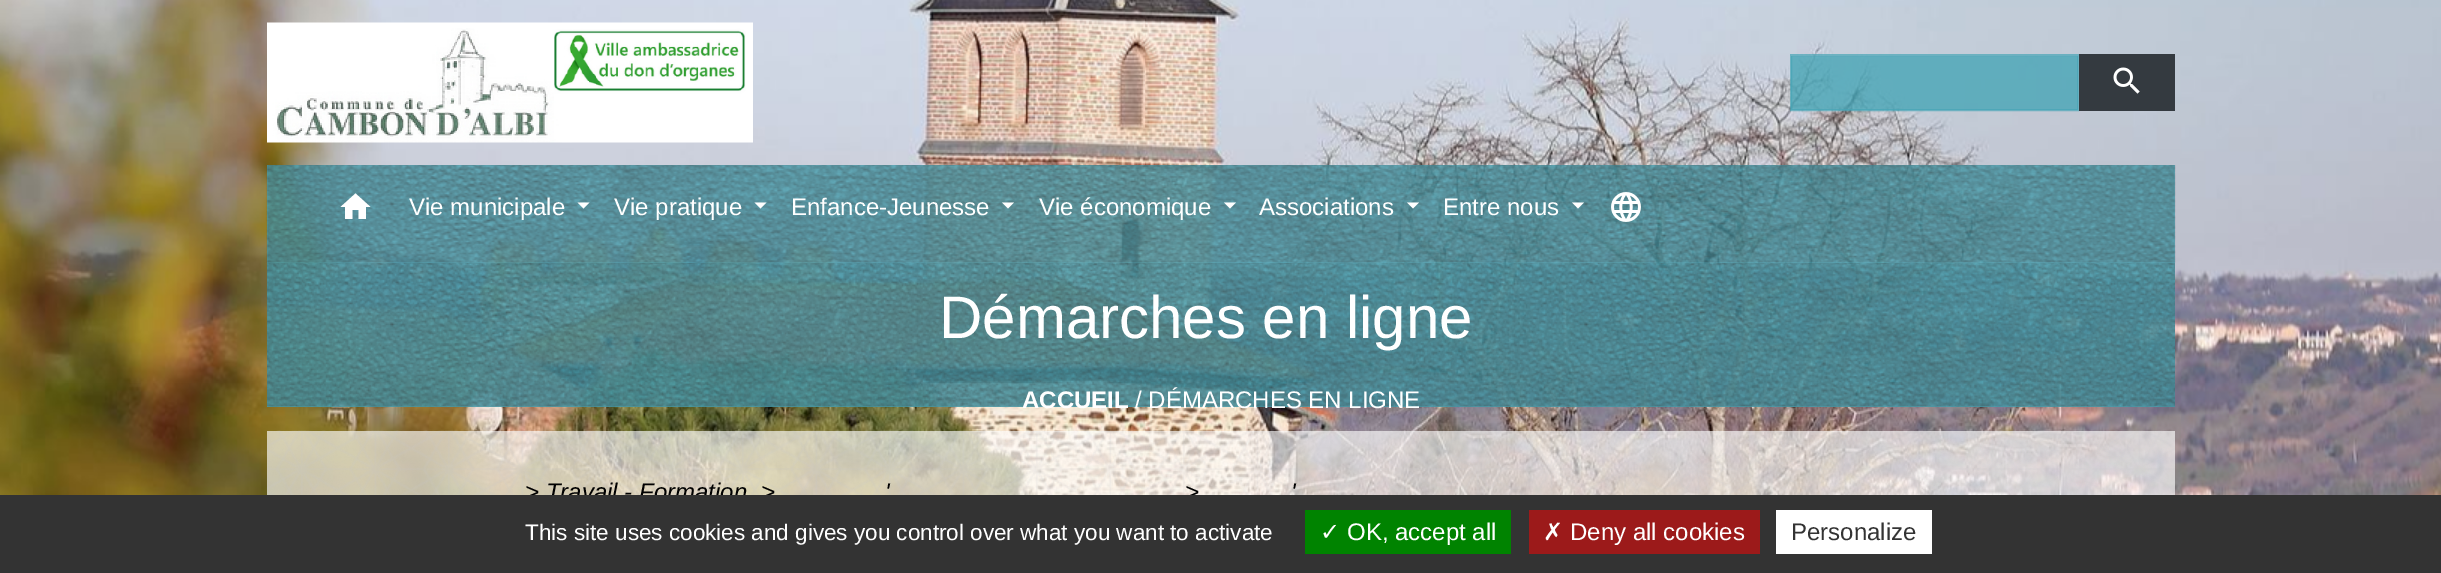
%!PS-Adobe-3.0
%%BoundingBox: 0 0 2441 573
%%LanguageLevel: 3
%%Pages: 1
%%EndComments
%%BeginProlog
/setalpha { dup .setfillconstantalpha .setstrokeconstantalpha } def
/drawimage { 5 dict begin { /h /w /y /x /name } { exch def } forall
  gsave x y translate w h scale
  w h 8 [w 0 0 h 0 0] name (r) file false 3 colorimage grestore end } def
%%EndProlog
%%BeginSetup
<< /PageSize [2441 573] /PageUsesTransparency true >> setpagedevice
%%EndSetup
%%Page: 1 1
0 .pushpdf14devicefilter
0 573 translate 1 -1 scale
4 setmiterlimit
1 setgray
0 0 2441 573 rectfill
(images/1.raw) 0 0 2441 495 drawimage
(images/2.raw) 267 22 486 121 drawimage
0.8 setalpha
0.278 0.647 0.714 setrgbcolor
1791 56 287 54 rectfill
0.7 setalpha
2 setlinewidth
1791 55 287 55 rectstroke
1 setalpha
0.204 0.227 0.251 setrgbcolor
2079 54 96 57 rectfill
(images/3.raw) 2113 67 27 27 drawimage
0.85 setalpha
0.278 0.647 0.714 setrgbcolor
267 263 1908 144 rectfill
1 setalpha
(images/6.raw) 267 262 1908 145 drawimage
0.8 setalpha
267 165 1908 98 rectfill
1 setalpha
(images/4.raw) 266 165 1910 98 drawimage
1 setgray
newpath 352.5 219 moveto 345 219 lineto 345 207 lineto 340.5 207 lineto 355.5 193.5 lineto 370.5 207 lineto 366 207 lineto 366 219 lineto 358.5 219 lineto 358.5 210 lineto 352.5 210 lineto closepath fill
newpath 577.5 202.5 moveto 589.5 202.5 lineto 583.5 208.5 lineto closepath fill
newpath 754.5 202.5 moveto 766.5 202.5 lineto 760.5 208.5 lineto closepath fill
newpath 1002 202.5 moveto 1014 202.5 lineto 1008 208.5 lineto closepath fill
newpath 1224 202.5 moveto 1236 202.5 lineto 1230 208.5 lineto closepath fill
newpath 1407 202.5 moveto 1419 202.5 lineto 1413 208.5 lineto closepath fill
newpath 1572 202.5 moveto 1584 202.5 lineto 1578 208.5 lineto closepath fill
(images/5.raw) 1611 192 30 30 drawimage
0.65 setalpha
267 431 1908 64 rectfill
1 setalpha
(images/7.raw) 267 430 1908 65 drawimage
/LiberationSans-Regular [24 0 0 -24 0 0] selectfont
409 215 moveto (Vie municipale) show
614 215 moveto (Vie pratique) show
791 215 moveto (Enfance-Jeunesse) show
1039 215 moveto (Vie économique) show
1259 215 moveto (Associations) show
1443 215 moveto (Entre nous) show
/LiberationSans-Regular [60 0 0 -60 0 0] selectfont
939 338 moveto (Démarches en ligne) show
/LiberationSans-Bold [24 0 0 -24 0 0] selectfont
1022 408 moveto (ACCUEIL) show
/LiberationSans-Regular [24 0 0 -24 0 0] selectfont
1135 408 moveto (/ DÉMARCHES EN LIGNE) show
/LiberationSans-Italic [24 0 0 -24 0 0] selectfont
0 setgray
525 500 moveto (> Travail - Formation) show
761 500 moveto (>) show
885 500 moveto (') show
1185 500 moveto (>) show
1291 500 moveto (') show
0.2 setgray
0 495 2441 78 rectfill
/LiberationSans-Regular [22.5 0 0 -22.5 0 0] selectfont
1 setgray
525 540 moveto (This site uses cookies and gives you control over what you want to activate) show
0 0.514 0 setrgbcolor
1305 510 206 44 rectfill
/DejaVuSans-Regular [24 0 0 -24 0 0] selectfont
1 setgray
1320 540 moveto (✓) show
/LiberationSans-Regular [24 0 0 -24 0 0] selectfont
1347 540 moveto (OK, accept all) show
0.612 0.102 0.102 setrgbcolor
1529 510 231 44 rectfill
/DejaVuSans-Regular [24 0 0 -24 0 0] selectfont
1 setgray
1543 540 moveto (✗) show
/LiberationSans-Regular [24 0 0 -24 0 0] selectfont
1570 540 moveto (Deny all cookies) show
1776 510 156 44 rectfill
0.2 setgray
1791 540 moveto (Personalize) show
.poppdf14devicefilter showpage
%%EOF
